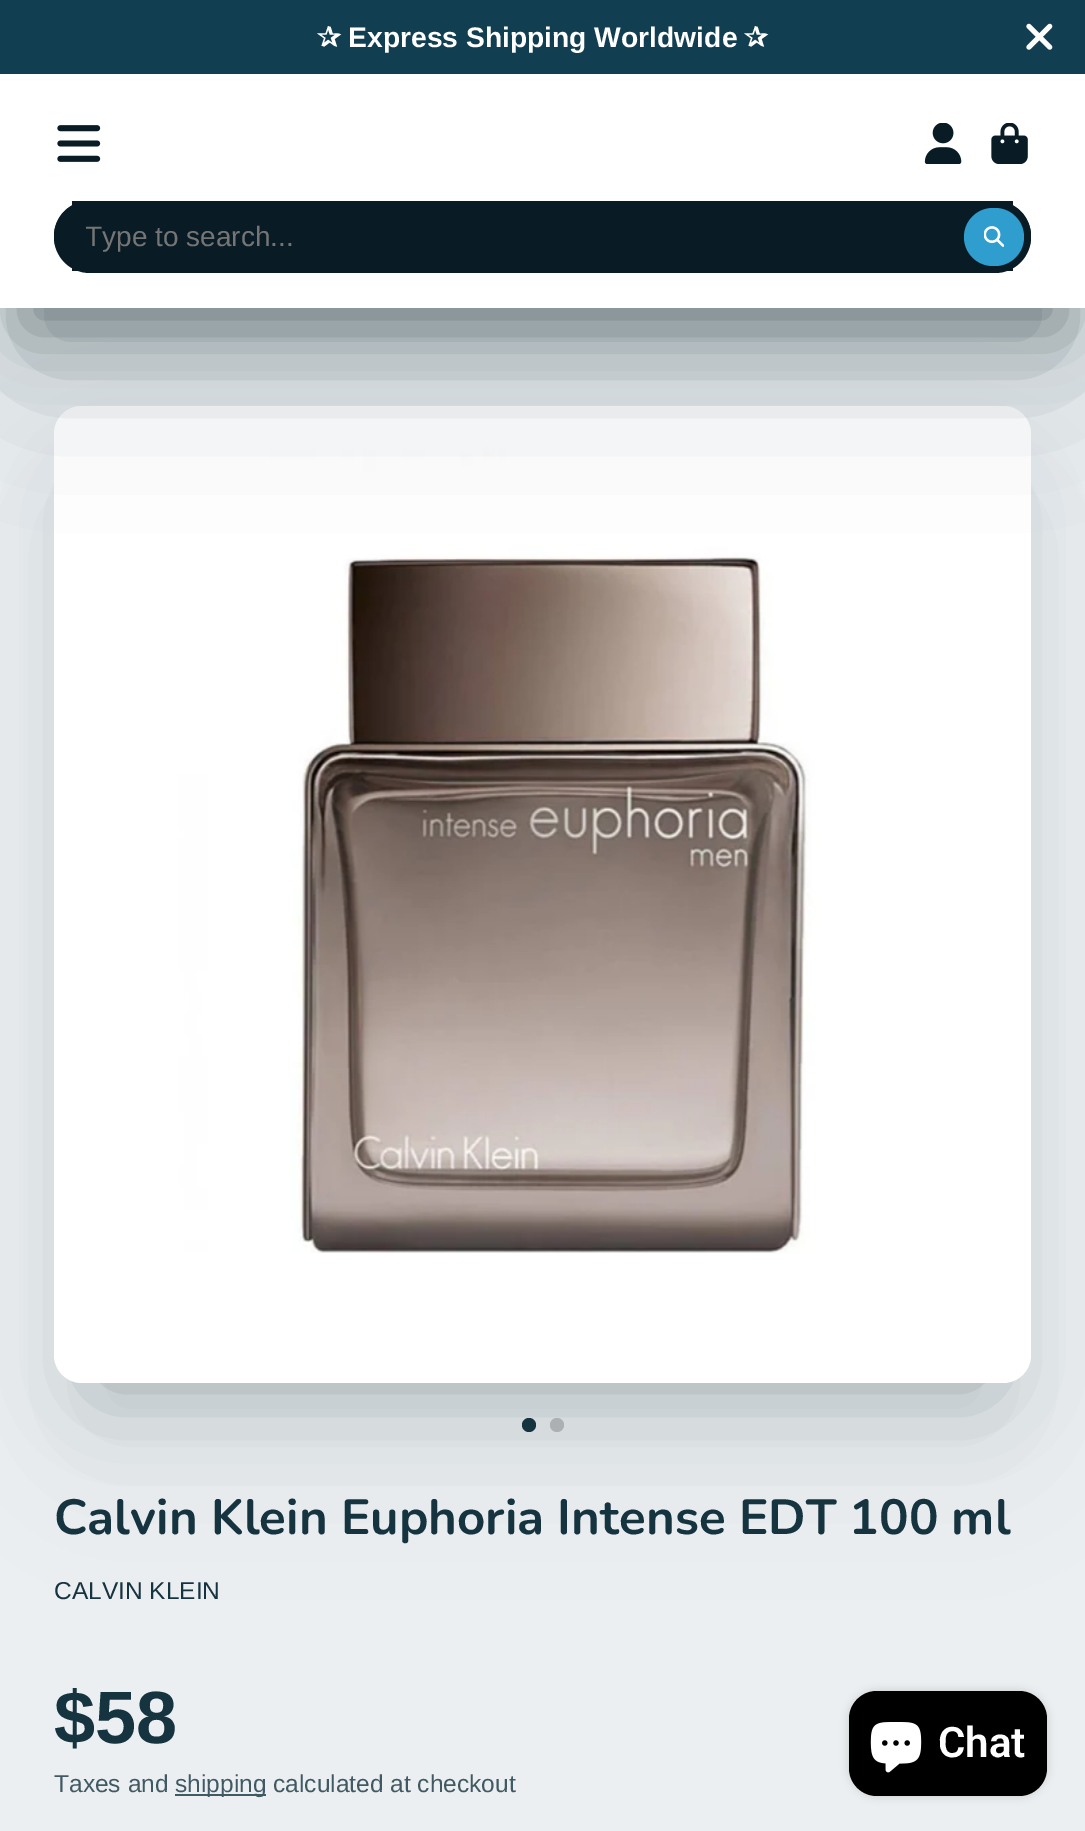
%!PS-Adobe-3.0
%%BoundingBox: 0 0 1085 1831
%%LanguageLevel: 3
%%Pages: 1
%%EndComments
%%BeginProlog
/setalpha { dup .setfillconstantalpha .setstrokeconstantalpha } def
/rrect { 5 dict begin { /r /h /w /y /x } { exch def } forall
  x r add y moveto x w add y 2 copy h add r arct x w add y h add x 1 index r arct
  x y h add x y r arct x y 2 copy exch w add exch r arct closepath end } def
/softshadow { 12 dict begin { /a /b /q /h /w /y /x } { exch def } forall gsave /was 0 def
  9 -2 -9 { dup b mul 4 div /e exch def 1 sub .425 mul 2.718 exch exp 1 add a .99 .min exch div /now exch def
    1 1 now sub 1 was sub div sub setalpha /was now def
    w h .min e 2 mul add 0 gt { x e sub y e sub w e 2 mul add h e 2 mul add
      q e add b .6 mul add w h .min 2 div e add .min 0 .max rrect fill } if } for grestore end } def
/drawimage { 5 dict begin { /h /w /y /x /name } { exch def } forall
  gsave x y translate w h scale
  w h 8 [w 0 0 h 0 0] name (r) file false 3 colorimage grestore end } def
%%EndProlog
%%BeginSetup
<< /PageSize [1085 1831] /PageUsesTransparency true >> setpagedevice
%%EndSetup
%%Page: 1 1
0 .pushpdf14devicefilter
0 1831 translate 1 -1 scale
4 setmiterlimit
0.922 0.937 0.945 setrgbcolor
0 0 1085 1831 rectfill
0.071 0.243 0.318 setrgbcolor
0 0 1085 74 rectfill
(images/1.raw) 1026 23 27 27 drawimage
0.086 0.2 0.251 setrgbcolor
newpath 529 1425 7 0 360 arc closepath fill
0.737 0.749 0.757 setrgbcolor
newpath 557 1425 7 0 360 arc closepath fill
0.059 0.141 0.176 setrgbcolor
100 499 885 884 0 46 0.3 softshadow
86 513 915 915 0 76.5 0.1 softshadow
1 setgray
54 406 977 977 28 rrect fill
(images/6.raw) 59 406 967 847 drawimage
0.059 0.141 0.176 setrgbcolor
25 144 1036 185 0 33.5 0.4 softshadow
25 175 1036 186 0 76.5 0.3 softshadow
1 setgray
0 74 1085 234 rectfill
(images/2.raw) 57 125 44 37 drawimage
(images/3.raw) 924 123 38 41 drawimage
(images/4.raw) 991 123 37 41 drawimage
0.035 0.11 0.145 setrgbcolor
54 201 977 70 35 rrect fill
72 201 941 70 rectfill
54 201 977 72 36 rrect fill
0.184 0.62 0.812 setrgbcolor
964 208 60 58 29 rrect fill
(images/5.raw) 984 226 20 21 drawimage
0.255 0.349 0.388 setrgbcolor
175 1794 91 2 rectfill
0 setgray
849 1691 198 105 28 4.5 0.15 softshadow
849 1691 198 105 28 rrect fill
(images/7.raw) 870 1722 52 51 drawimage
/DejaVuSans-Bold [28.25 0 0 -28.25 0 0] selectfont
1 setgray
317 47 moveto (✰) show
/LiberationSans-Bold [28.25 0 0 -28.25 0 0] selectfont
348 47 moveto (Express Shipping Worldwide) show
/DejaVuSans-Bold [28.25 0 0 -28.25 0 0] selectfont
744 47 moveto (✰) show
gsave
86 222 915 32 rectclip
/LiberationSans-Regular [28 0 0 -28 0 0] selectfont
0.459 setgray
85 246 moveto (Type to search...) show
grestore
/Nunito-Bold [49.25 0 0 -49.25 0 0] selectfont
0.086 0.2 0.251 setrgbcolor
54 1534 moveto (Calvin Klein Euphoria Intense EDT 100 ml) show
/LiberationSans-Regular [24.5 0 0 -24.5 0 0] selectfont
54 1599 moveto (CALVIN KLEIN) show
/LiberationSans-Bold [74 0 0 -74 0 0] selectfont
54 1743 moveto ($58) show
/LiberationSans-Regular [24.5 0 0 -24.5 0 0] selectfont
0.255 0.349 0.388 setrgbcolor
54 1792 moveto (Taxes and) show
175 1792 moveto (shipping calculated at checkout) show
/Roboto-SemiBold [42 0 0 -42 0 0] selectfont
1 setgray
938 1757 moveto (Chat) show
.poppdf14devicefilter showpage
%%EOF
